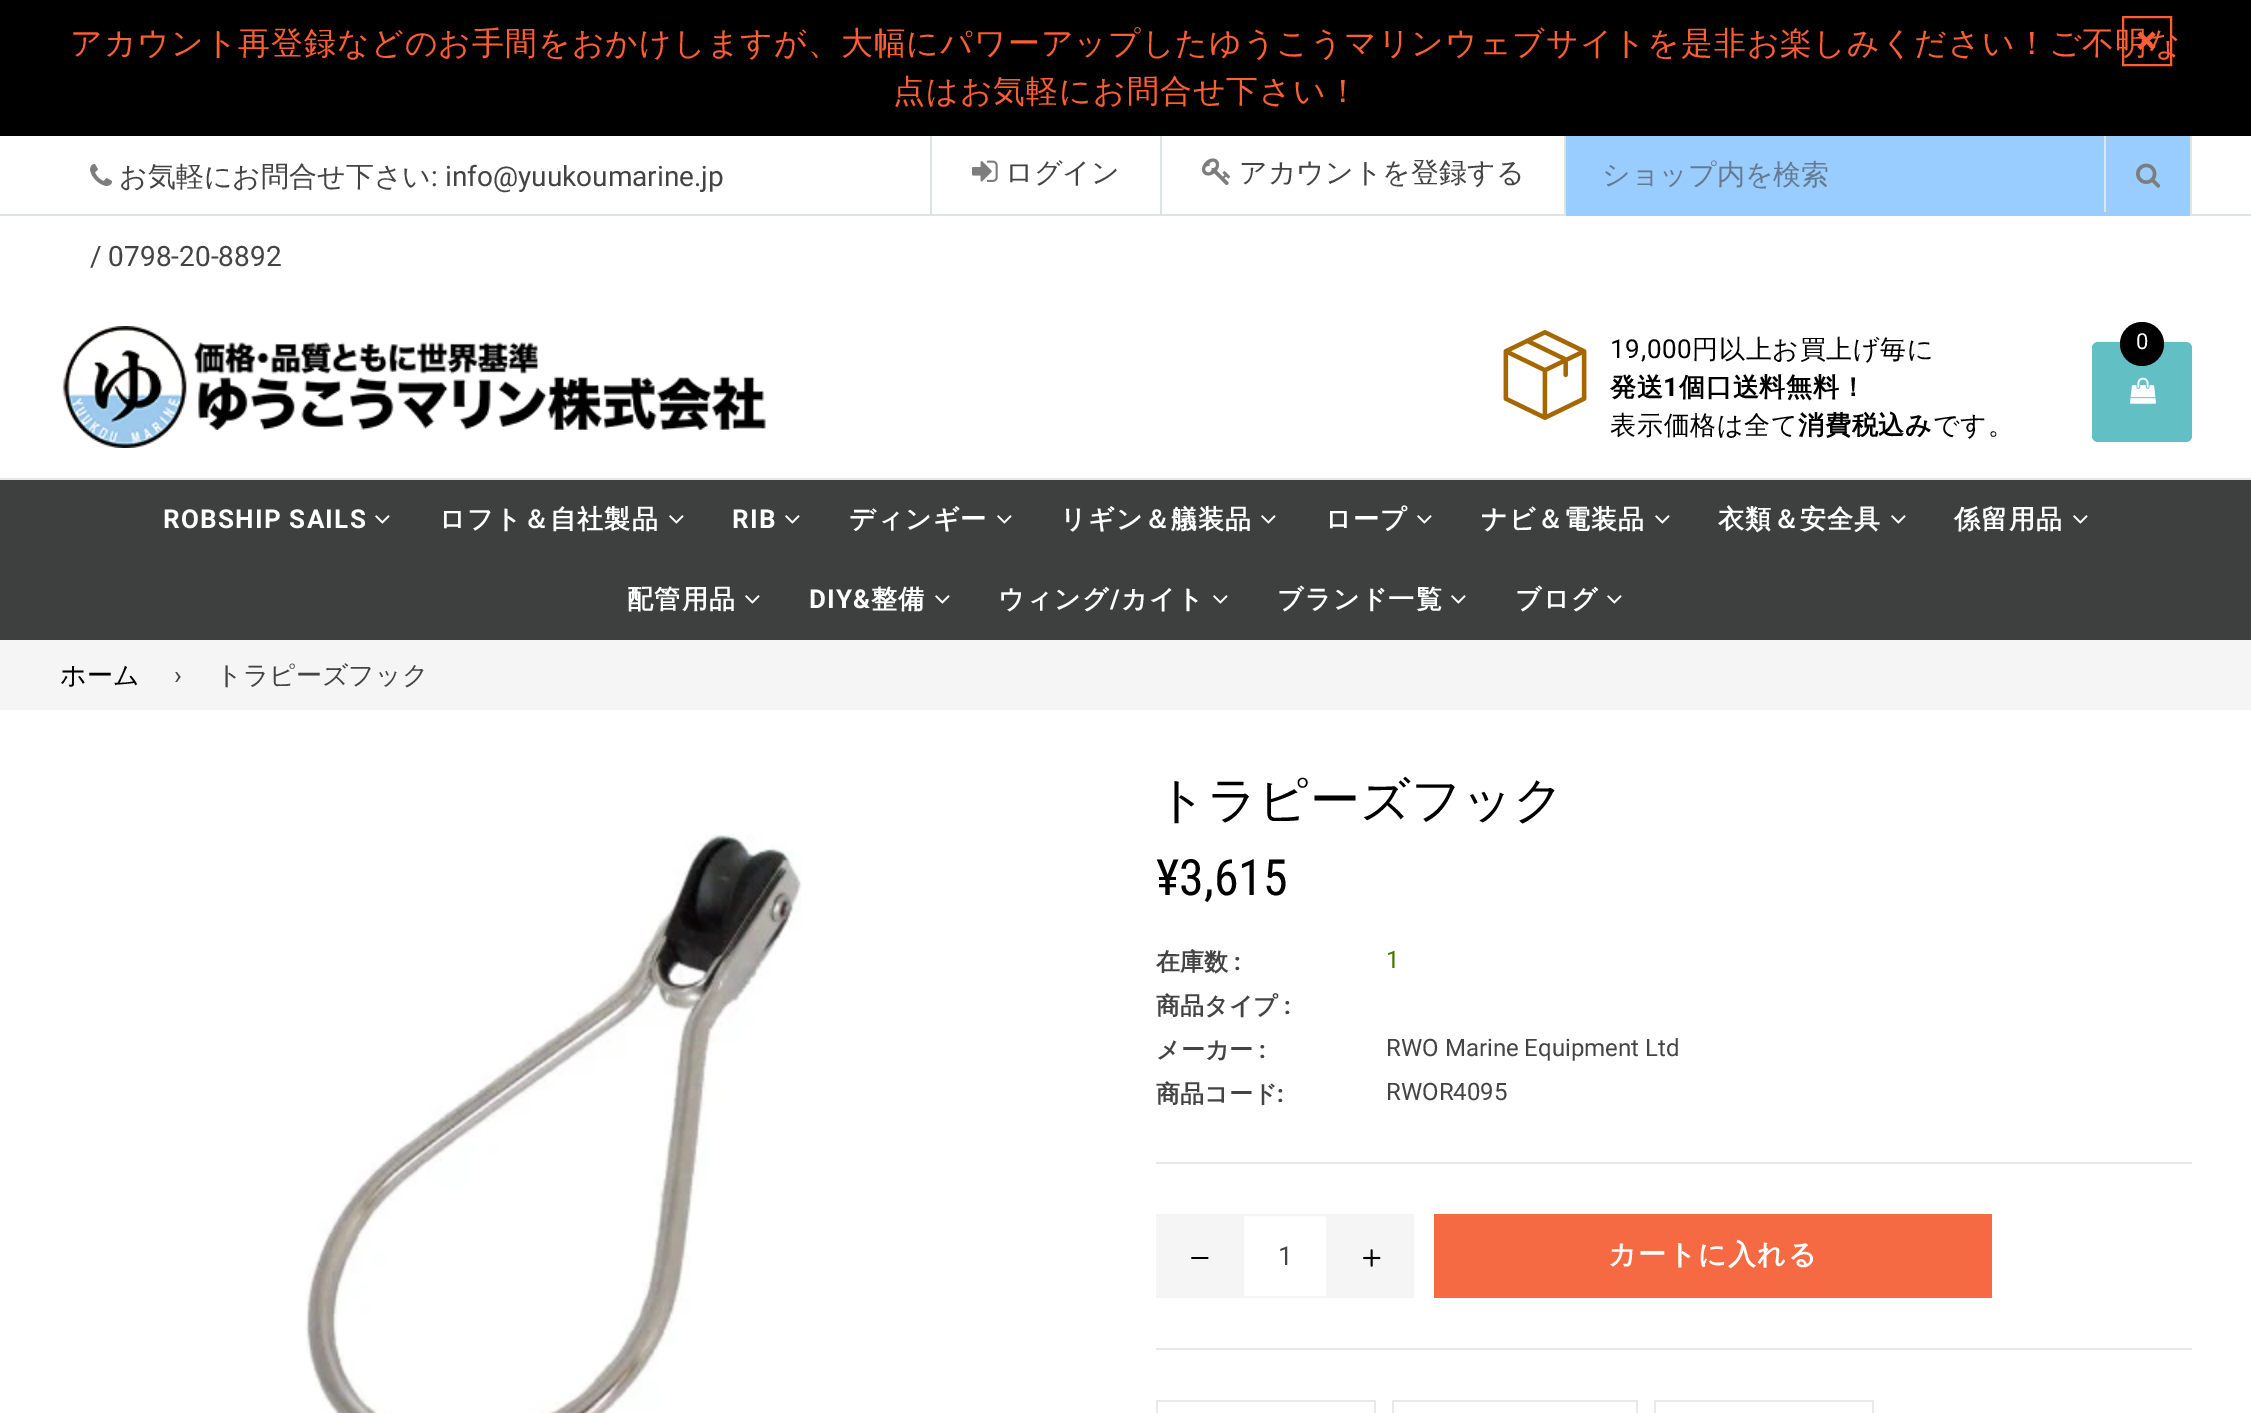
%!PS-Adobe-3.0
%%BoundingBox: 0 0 2251 1413
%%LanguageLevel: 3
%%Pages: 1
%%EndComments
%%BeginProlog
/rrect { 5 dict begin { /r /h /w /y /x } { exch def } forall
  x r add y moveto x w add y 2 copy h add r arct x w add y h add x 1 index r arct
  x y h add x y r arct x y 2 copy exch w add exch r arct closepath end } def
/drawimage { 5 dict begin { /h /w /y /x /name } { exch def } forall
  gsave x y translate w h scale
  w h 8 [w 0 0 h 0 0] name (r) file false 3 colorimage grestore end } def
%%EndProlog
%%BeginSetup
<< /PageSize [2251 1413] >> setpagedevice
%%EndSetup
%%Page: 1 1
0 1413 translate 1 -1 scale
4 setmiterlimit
1 setgray
0 0 2251 1413 rectfill
0 setgray
0 0 2251 136 rectfill
0.996 0.369 0.2 setrgbcolor
2 setlinewidth
2123 17 48 48 rectstroke
0.906 setgray
0 478 2251 2 rectfill
0.859 0.898 0.902 setrgbcolor
0 214 2251 2 rectfill
(images/1.raw) 90 164 22 22 drawimage
930 136 2 80 rectfill
1160 136 2 80 rectfill
(images/2.raw) 972 160 26 22 drawimage
1564 136 2 80 rectfill
(images/3.raw) 1202 158 29 28 drawimage
0.6 0.8 1 setrgbcolor
1566 136 624 80 rectfill
0.859 0.898 0.902 setrgbcolor
2104 136 2 76 rectfill
2190 136 2 80 rectfill
(images/4.raw) 2136 163 25 25 drawimage
(images/5.raw) 62 326 704 122 drawimage
(images/6.raw) 1503 330 84 90 drawimage
0.384 0.749 0.769 setrgbcolor
2092 342 100 100 6 rrect fill
0 setgray
newpath 2142 344 22 0 360 arc closepath fill
(images/7.raw) 2130 377 26 27 drawimage
0.243 0.251 0.251 setrgbcolor
0 480 2251 160 rectfill
(images/8.raw) 375 515 15 9 drawimage
(images/8.raw) 669 515 15 9 drawimage
(images/8.raw) 785 515 15 9 drawimage
(images/8.raw) 997 515 15 9 drawimage
(images/8.raw) 1261 515 15 9 drawimage
(images/8.raw) 1417 515 15 9 drawimage
(images/8.raw) 1655 515 15 9 drawimage
(images/8.raw) 1891 515 15 9 drawimage
(images/8.raw) 2073 515 15 9 drawimage
(images/8.raw) 745 595 15 9 drawimage
(images/8.raw) 935 595 15 9 drawimage
(images/8.raw) 1213 595 15 9 drawimage
(images/8.raw) 1451 595 15 9 drawimage
(images/8.raw) 1607 595 15 9 drawimage
0.961 setgray
0 640 2251 70 rectfill
(images/9.raw) 305 833 497 580 drawimage
0.906 setgray
1156 1162 1036 2 rectfill
0.961 setgray
1156 1214 86 84 rectfill
(images/10.raw) 1191 1257 18 2 drawimage
1243 1215 84 82 rectstroke
1328 1214 86 84 rectfill
(images/11.raw) 1363 1249 18 18 drawimage
0.961 0.412 0.263 setrgbcolor
1434 1214 558 84 rectfill
0.906 setgray
1156 1348 1036 2 rectfill
0.91 0.914 0.922 setrgbcolor
1156 1400 220 2 rectfill
1374 1400 2 13 rectfill
1156 1400 2 13 rectfill
1392 1400 246 2 rectfill
1636 1400 2 13 rectfill
1392 1400 2 13 rectfill
1654 1400 220 2 rectfill
1872 1400 2 13 rectfill
1654 1400 2 13 rectfill
/WenQuanYiZenHei-Medium [32 0 0 -32 0 0] selectfont
0.996 0.369 0.2 setrgbcolor
70 54 moveto 0.95 0 (アカウント再登録などのお手間をおかけしますが、大幅にパワーアップしたゆうこうマリンウェブサイトを是非お楽しみください！ご不明な) ashow
893 102 moveto 0.95 0 (点はお気軽にお問合せ下さい！) ashow
/Roboto-Bold [40 0 0 -40 0 0] selectfont
2136 54 moveto (×) show
/WenQuanYiZenHei-Medium [28 0 0 -28 0 0] selectfont
0.267 setgray
119 186 moveto (お気軽にお問合せ下さい) show
/Roboto-Regular [28 0 0 -28 0 0] selectfont
431 186 moveto (: info@yuukoumarine.jp) show
90 266 moveto (/ 0798-20-8892) show
/WenQuanYiZenHei-Medium [28 0 0 -28 0 0] selectfont
1005 182 moveto (ログイン) show
1239 182 moveto (アカウントを登録する) show
0.4 0.478 0.561 setrgbcolor
1602 184 moveto (ショップ内を検索) show
/Roboto-Regular [26 0 0 -26 0 0] selectfont
0 setgray
1610 358 moveto 0.75 0 (19,000) ashow
/WenQuanYiZenHei-Medium [26 0 0 -26 0 0] selectfont
1692 358 moveto 0.75 0 (円以上お買上げ毎に) ashow
/WenQuanYiZenHei-Bold [26 0 0 -26 0 0] selectfont
1610 396 moveto 0.75 0 (発送) ashow
/Roboto-Bold [26 0 0 -26 0 0] selectfont
1663 396 moveto 0.75 0 (1) ashow
/WenQuanYiZenHei-Bold [26 0 0 -26 0 0] selectfont
1679 396 moveto 0.75 0 (個口送料無料！) ashow
/WenQuanYiZenHei-Medium [26 0 0 -26 0 0] selectfont
1610 434 moveto 0.75 0 (表示価格は全て) ashow
/WenQuanYiZenHei-Bold [26 0 0 -26 0 0] selectfont
1798 434 moveto 0.75 0 (消費税込み) ashow
/WenQuanYiZenHei-Medium [26 0 0 -26 0 0] selectfont
1933 434 moveto 0.75 0 (です。) ashow
/Roboto-Regular [22 0 0 -22 0 0] selectfont
1 setgray
2136 349 moveto (0) show
/Roboto-Bold [26 0 0 -26 0 0] selectfont
163 528 moveto 1.25 0 (ROBSHIP SAILS) ashow
/WenQuanYiZenHei-Bold [26 0 0 -26 0 0] selectfont
439 528 moveto 1.25 0 (ロフト＆自社製品) ashow
/Roboto-Bold [26 0 0 -26 0 0] selectfont
732 528 moveto 1.25 0 (RIB) ashow
/WenQuanYiZenHei-Bold [26 0 0 -26 0 0] selectfont
849 528 moveto 1.25 0 (ディンギー) ashow
1060 528 moveto 1.25 0 (リギン＆艤装品) ashow
1325 528 moveto 1.25 0 (ロープ) ashow
1481 528 moveto 1.25 0 (ナビ＆電装品) ashow
1718 528 moveto 1.25 0 (衣類＆安全具) ashow
1954 528 moveto 1.25 0 (係留用品) ashow
627 608 moveto 1.25 0 (配管用品) ashow
/Roboto-Bold [26 0 0 -26 0 0] selectfont
809 608 moveto 1.25 0 (DIY&) ashow
/WenQuanYiZenHei-Bold [26 0 0 -26 0 0] selectfont
871 608 moveto 1.25 0 (整備) ashow
998 608 moveto 1.25 0 (ウィング) ashow
/Roboto-Bold [26 0 0 -26 0 0] selectfont
1110 608 moveto 1.25 0 (/) ashow
/WenQuanYiZenHei-Bold [26 0 0 -26 0 0] selectfont
1121 608 moveto 1.25 0 (カイト) ashow
1277 608 moveto 1.25 0 (ブランド一覧) ashow
1515 608 moveto 1.25 0 (ブログ) ashow
/WenQuanYiZenHei-Medium [26 0 0 -26 0 0] selectfont
0 setgray
60 684 moveto (ホーム) show
/Roboto-Regular [26 0 0 -26 0 0] selectfont
0.267 setgray
174 684 moveto (›) show
/WenQuanYiZenHei-Medium [26 0 0 -26 0 0] selectfont
216 684 moveto (トラピーズフック) show
/WenQuanYiZenHei-Medium [50 0 0 -50 0 0] selectfont
0 setgray
1156 817 moveto (トラピーズフック) show
/RobotoCondensed-Regular [50 0 0 -50 0 0] selectfont
1156 895 moveto (¥3,615) show
/WenQuanYiZenHei-Bold [24 0 0 -24 0 0] selectfont
0.267 setgray
1156 970 moveto (在庫数) show
/Roboto-Bold [24 0 0 -24 0 0] selectfont
1234 970 moveto (:) show
/Roboto-Regular [24 0 0 -24 0 0] selectfont
0.267 0.475 0 setrgbcolor
1386 968 moveto (1) show
/WenQuanYiZenHei-Bold [24 0 0 -24 0 0] selectfont
0.267 setgray
1156 1014 moveto (商品タイプ) show
/Roboto-Bold [24 0 0 -24 0 0] selectfont
1284 1014 moveto (:) show
/WenQuanYiZenHei-Bold [24 0 0 -24 0 0] selectfont
1156 1058 moveto (メーカー) show
/Roboto-Bold [24 0 0 -24 0 0] selectfont
1259 1058 moveto (:) show
/Roboto-Regular [24 0 0 -24 0 0] selectfont
1386 1056 moveto (RWO Marine Equipment Ltd) show
/WenQuanYiZenHei-Bold [24 0 0 -24 0 0] selectfont
1156 1102 moveto (商品コード) show
/Roboto-Bold [24 0 0 -24 0 0] selectfont
1277 1102 moveto (:) show
/Roboto-Regular [24 0 0 -24 0 0] selectfont
1386 1100 moveto (RWOR4095) show
/Roboto-Regular [26 0 0 -26 0 0] selectfont
1278 1265 moveto (1) show
/WenQuanYiZenHei-Bold [28 0 0 -28 0 0] selectfont
1 setgray
1608 1264 moveto 1.5 0 (カートに入れる) ashow
showpage
%%EOF
